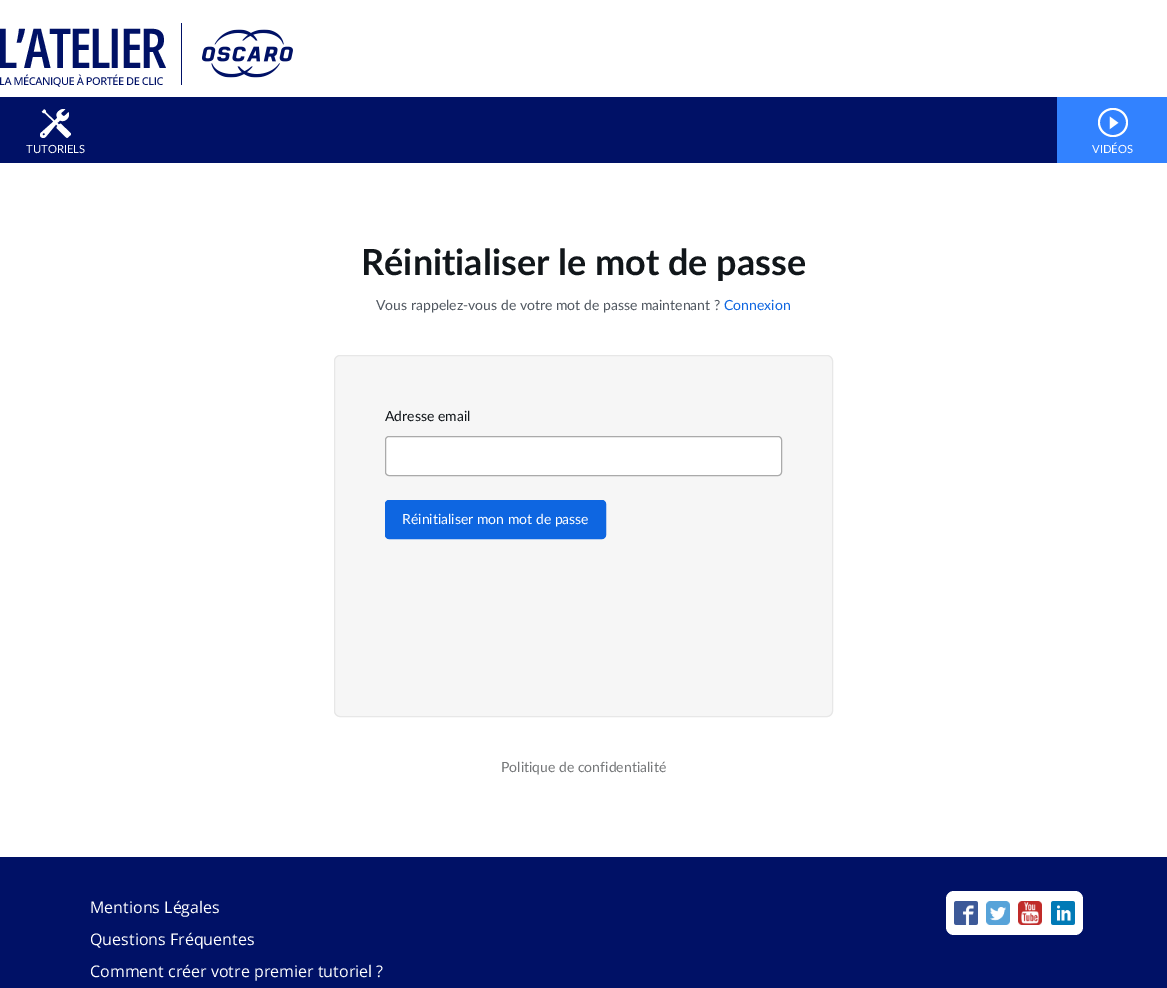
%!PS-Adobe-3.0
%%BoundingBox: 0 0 1167 988
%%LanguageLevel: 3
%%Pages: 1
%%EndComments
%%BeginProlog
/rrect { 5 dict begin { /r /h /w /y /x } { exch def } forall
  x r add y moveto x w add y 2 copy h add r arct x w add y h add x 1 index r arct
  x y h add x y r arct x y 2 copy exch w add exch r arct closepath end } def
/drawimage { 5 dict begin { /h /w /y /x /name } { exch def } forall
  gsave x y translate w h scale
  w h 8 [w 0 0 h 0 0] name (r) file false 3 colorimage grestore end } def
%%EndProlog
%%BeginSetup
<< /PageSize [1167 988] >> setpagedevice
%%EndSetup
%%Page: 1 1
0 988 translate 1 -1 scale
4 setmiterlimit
1 setgray
0 0 1167 988 rectfill
(images/1.raw) 0 23 182 64 drawimage
(images/2.raw) 202 29 91 49 drawimage
0 0.067 0.4 setrgbcolor
0 97 1057 66 rectfill
(images/3.raw) 40 109 31 29 drawimage
0.196 0.51 1 setrgbcolor
1057 97 110 66 rectfill
(images/4.raw) 1098 108 30 29 drawimage
0.965 setgray
334.5 355.5 498 361 5.5 rrect gsave fill grestore
0.906 setgray
stroke
1 setgray
385.5 436.5 396 39 3.5 rrect gsave fill grestore
0.667 setgray
stroke
0.055 0.4 0.882 setrgbcolor
385.5 500.5 220 38 3.5 rrect gsave fill grestore
stroke
0 0.067 0.4 setrgbcolor
0 857 1167 131 rectfill
1 setgray
946 891 137 44 8 rrect fill
(images/5.raw) 954 901 24 24 drawimage
(images/6.raw) 986 901 24 24 drawimage
(images/7.raw) 1018 901 24 24 drawimage
(images/8.raw) 1051 901 24 24 drawimage
/Lato-Regular [11.25 0 0 -11.25 0 0] selectfont
26 153 moveto (TUTORIELS) show
1092 153 moveto (VIDÉOS) show
/Lato-Bold [36 0 0 -36 0 0] selectfont
0.067 0.086 0.102 setrgbcolor
361 275 moveto (Réinitialiser le mot de passe) show
/Lato-Regular [14 0 0 -14 0 0] selectfont
0.318 0.345 0.38 setrgbcolor
376 310 moveto (Vous rappelez-vous de votre mot de passe maintenant ?) show
0.055 0.4 0.882 setrgbcolor
724 310 moveto (Connexion) show
0.067 0.086 0.102 setrgbcolor
385 421 moveto (Adresse email) show
1 setgray
402 524 moveto (Réinitialiser mon mot de passe) show
0.459 0.467 0.475 setrgbcolor
501 772 moveto (Politique de confidentialité) show
/OpenSans-Regular [16 0 0 -16 0 0] selectfont
1 setgray
90 913 moveto (Mentions Légales) show
90 945 moveto (Questions Fréquentes) show
90 977 moveto (Comment créer votre premier tutoriel ?) show
showpage
%%EOF
